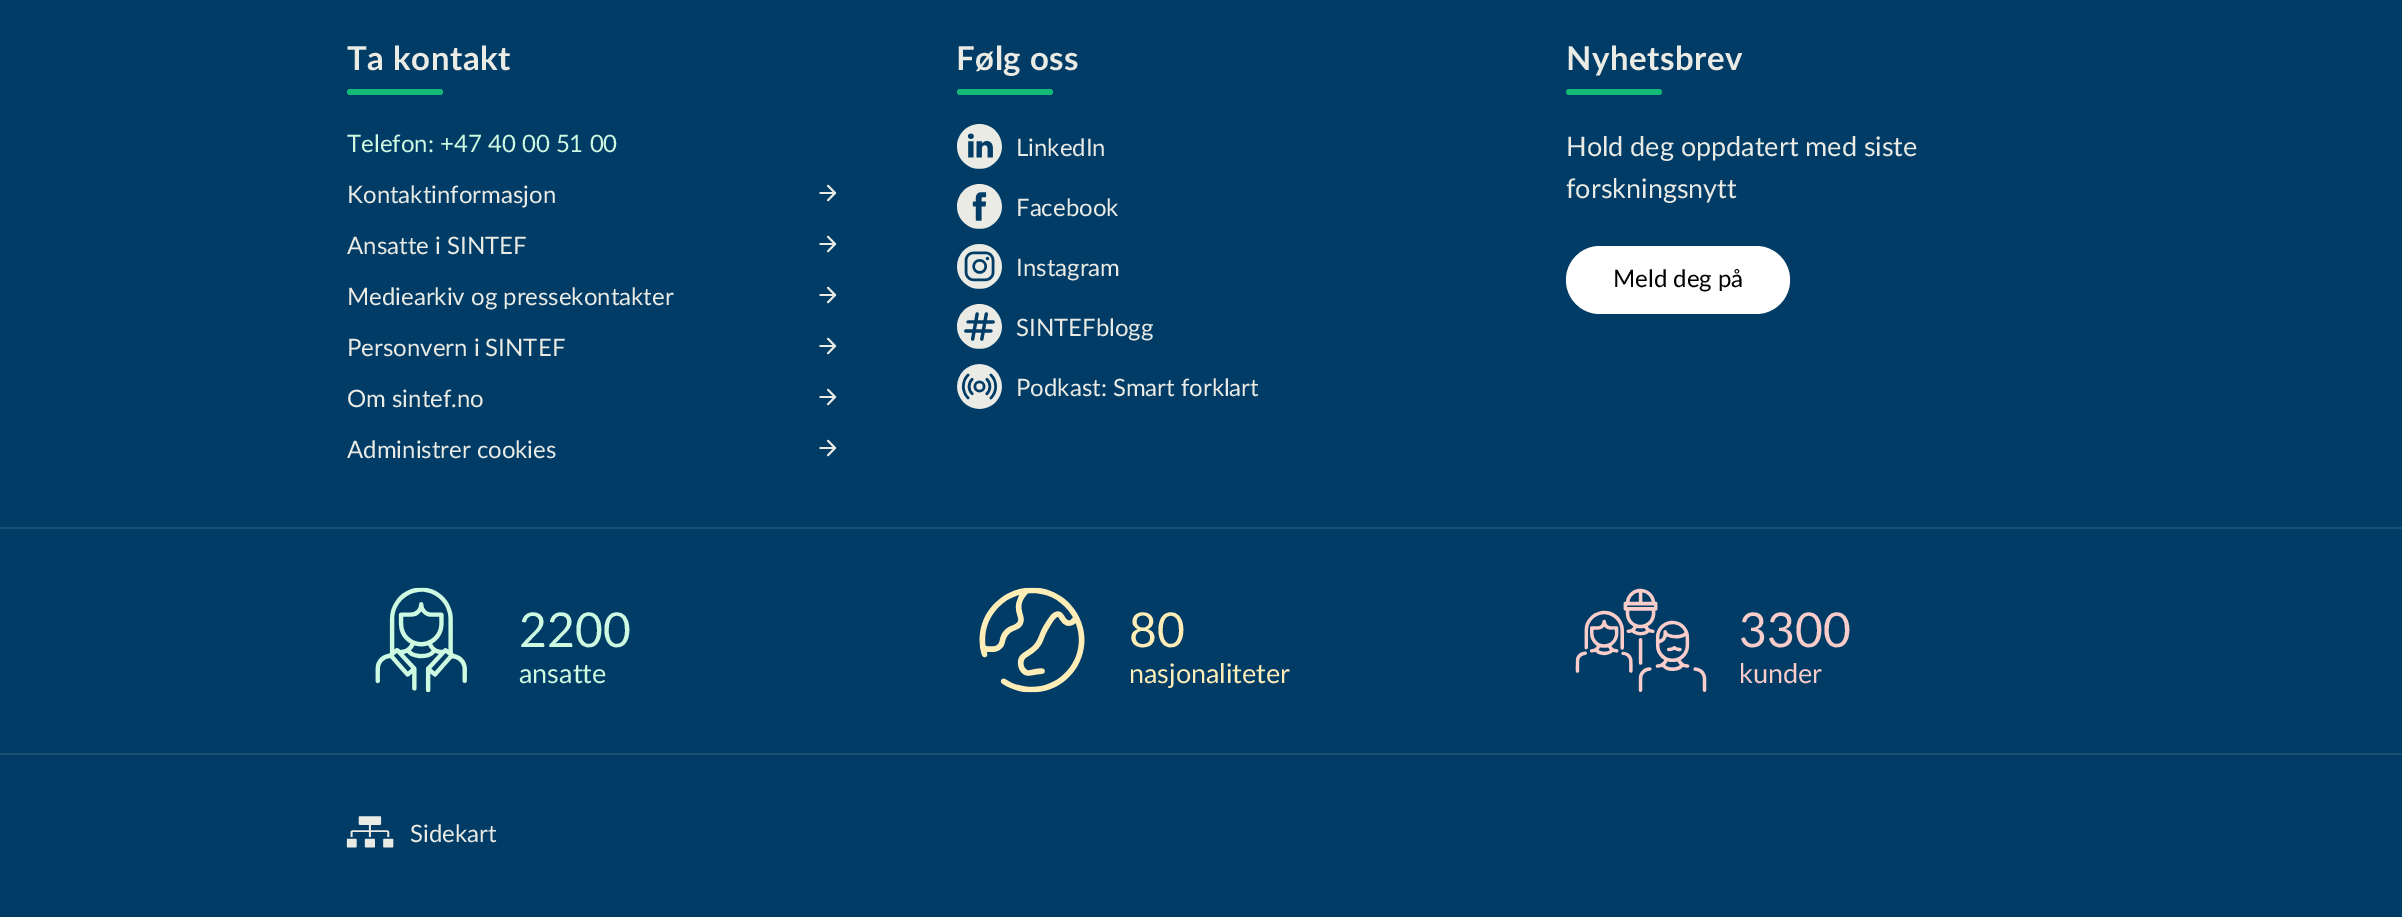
%!PS-Adobe-3.0
%%BoundingBox: 0 0 2402 917
%%LanguageLevel: 3
%%Pages: 1
%%EndComments
%%BeginProlog
/rrect { 5 dict begin { /r /h /w /y /x } { exch def } forall
  x r add y moveto x w add y 2 copy h add r arct x w add y h add x 1 index r arct
  x y h add x y r arct x y 2 copy exch w add exch r arct closepath end } def
/drawimage { 5 dict begin { /h /w /y /x /name } { exch def } forall
  gsave x y translate w h scale
  w h 8 [w 0 0 h 0 0] name (r) file false 3 colorimage grestore end } def
%%EndProlog
%%BeginSetup
<< /PageSize [2402 917] >> setpagedevice
%%EndSetup
%%Page: 1 1
0 917 translate 1 -1 scale
4 setmiterlimit
0 0.235 0.396 setrgbcolor
0 0 2402 917 rectfill
0.078 0.725 0.471 setrgbcolor
347 89 96 6 3 rrect fill
(images/1.raw) 819 184 18 18 drawimage
(images/1.raw) 819 235 18 18 drawimage
(images/1.raw) 819 286 18 18 drawimage
(images/1.raw) 819 337 18 18 drawimage
(images/1.raw) 819 388 18 18 drawimage
(images/1.raw) 819 439 18 18 drawimage
957 89 96 6 3 rrect fill
(images/2.raw) 957 124 45 45 drawimage
(images/3.raw) 957 184 45 45 drawimage
(images/4.raw) 957 244 45 45 drawimage
(images/5.raw) 957 304 45 45 drawimage
(images/6.raw) 957 364 45 45 drawimage
1566 89 96 6 3 rrect fill
1 setgray
1566 246 224 68 34 rrect fill
0.102 0.314 0.455 setrgbcolor
0 527 2402 2 rectfill
(images/7.raw) 375 587 92 106 drawimage
(images/8.raw) 979 587 106 106 drawimage
(images/9.raw) 1575 588 132 104 drawimage
0 753 2402 2 rectfill
(images/10.raw) 346 816 48 32 drawimage
/Lato-Bold [33 0 0 -33 0 0] selectfont
0.922 0.922 0.902 setrgbcolor
347 70 moveto 0.5 0 (Ta kontakt) ashow
/Lato-Regular [24 0 0 -24 0 0] selectfont
0.804 0.98 0.882 setrgbcolor
347 152 moveto (Telefon: +47 40 00 51 00) show
0.922 0.922 0.902 setrgbcolor
347 203 moveto (Kontaktinformasjon) show
347 254 moveto (Ansatte i SINTEF) show
347 305 moveto (Mediearkiv og pressekontakter) show
347 356 moveto (Personvern i SINTEF) show
347 407 moveto (Om sintef.no) show
347 458 moveto (Administrer cookies) show
/Lato-Bold [33 0 0 -33 0 0] selectfont
956 70 moveto 0.5 0 (Følg oss) ashow
/Lato-Regular [24 0 0 -24 0 0] selectfont
1016 156 moveto (LinkedIn) show
1016 216 moveto (Facebook) show
1016 276 moveto (Instagram) show
1016 336 moveto (SINTEFblogg) show
1016 396 moveto (Podkast: Smart forklart) show
/Lato-Bold [33 0 0 -33 0 0] selectfont
1566 70 moveto 0.5 0 (Nyhetsbrev) ashow
/Lato-Regular [27 0 0 -27 0 0] selectfont
1566 156 moveto (Hold deg oppdatert med siste) show
1566 198 moveto (forskningsnytt) show
/Lato-Regular [24 0 0 -24 0 0] selectfont
0 setgray
1613 287 moveto (Meld deg på) show
/Lato-Regular [48 0 0 -48 0 0] selectfont
0.804 0.98 0.882 setrgbcolor
519 647 moveto (2200) show
/Lato-Regular [27 0 0 -27 0 0] selectfont
519 683 moveto (ansatte) show
/Lato-Regular [48 0 0 -48 0 0] selectfont
1 0.929 0.722 setrgbcolor
1129 647 moveto (80) show
/Lato-Regular [27 0 0 -27 0 0] selectfont
1129 683 moveto (nasjonaliteter) show
/Lato-Regular [48 0 0 -48 0 0] selectfont
0.98 0.8 0.792 setrgbcolor
1739 647 moveto (3300) show
/Lato-Regular [27 0 0 -27 0 0] selectfont
1739 683 moveto (kunder) show
/Lato-Regular [24 0 0 -24 0 0] selectfont
0.922 0.922 0.902 setrgbcolor
410 842 moveto (Sidekart) show
showpage
%%EOF
